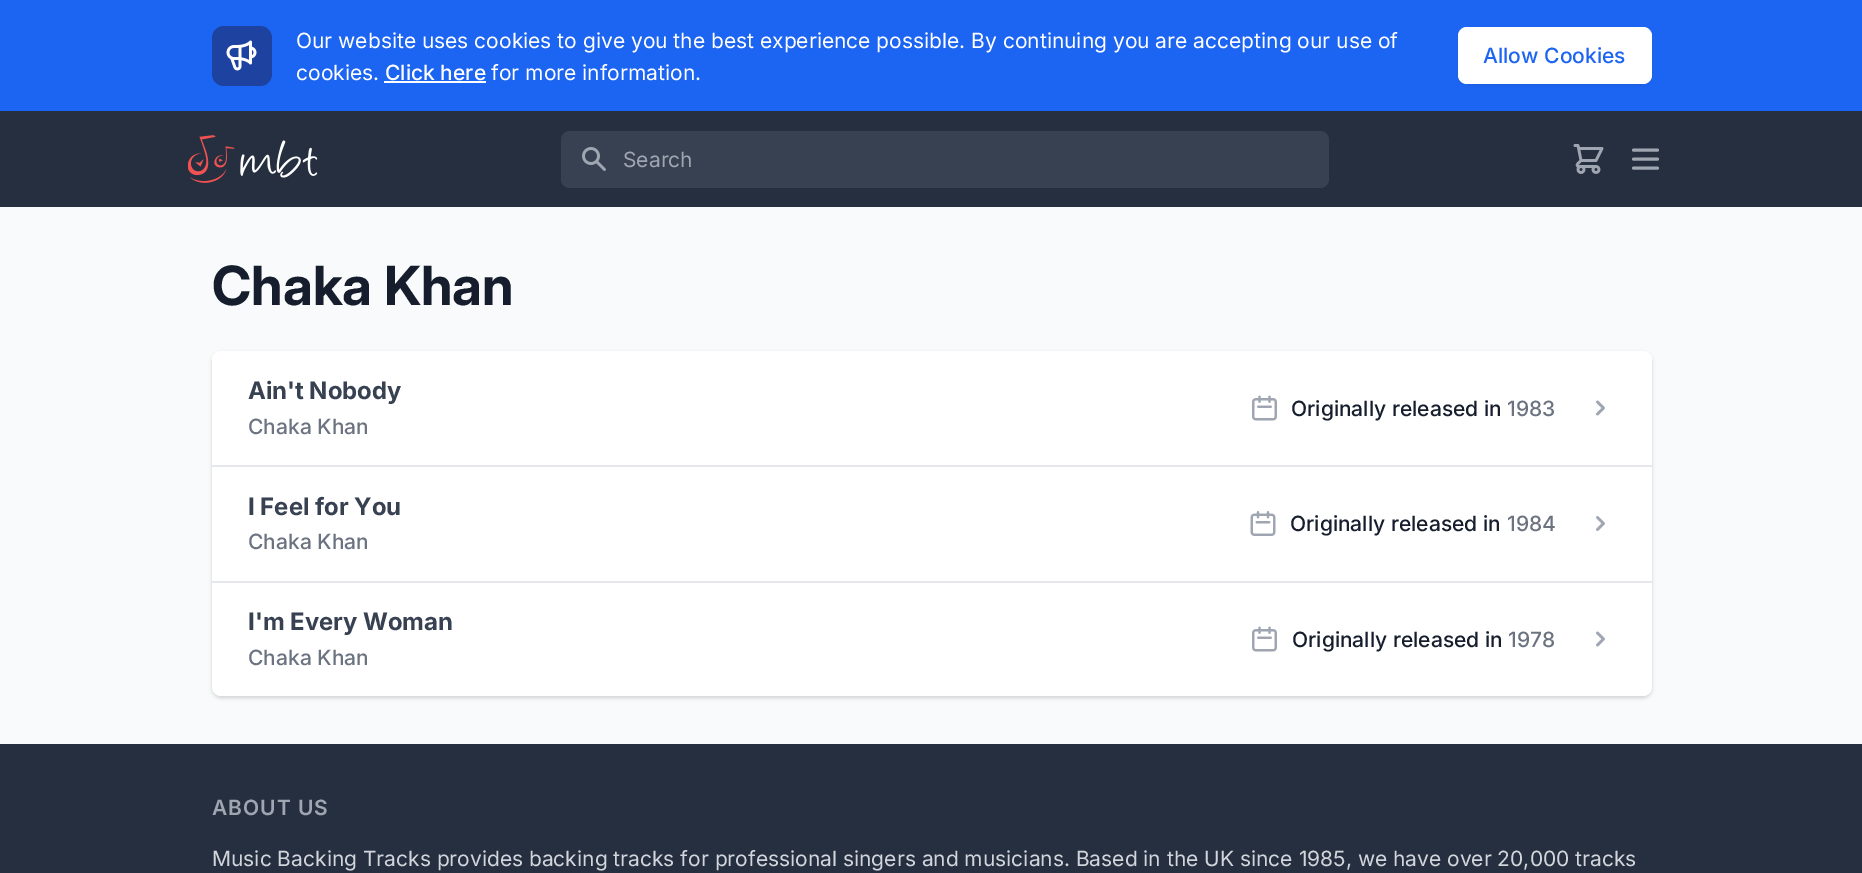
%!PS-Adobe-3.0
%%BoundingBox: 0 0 1862 873
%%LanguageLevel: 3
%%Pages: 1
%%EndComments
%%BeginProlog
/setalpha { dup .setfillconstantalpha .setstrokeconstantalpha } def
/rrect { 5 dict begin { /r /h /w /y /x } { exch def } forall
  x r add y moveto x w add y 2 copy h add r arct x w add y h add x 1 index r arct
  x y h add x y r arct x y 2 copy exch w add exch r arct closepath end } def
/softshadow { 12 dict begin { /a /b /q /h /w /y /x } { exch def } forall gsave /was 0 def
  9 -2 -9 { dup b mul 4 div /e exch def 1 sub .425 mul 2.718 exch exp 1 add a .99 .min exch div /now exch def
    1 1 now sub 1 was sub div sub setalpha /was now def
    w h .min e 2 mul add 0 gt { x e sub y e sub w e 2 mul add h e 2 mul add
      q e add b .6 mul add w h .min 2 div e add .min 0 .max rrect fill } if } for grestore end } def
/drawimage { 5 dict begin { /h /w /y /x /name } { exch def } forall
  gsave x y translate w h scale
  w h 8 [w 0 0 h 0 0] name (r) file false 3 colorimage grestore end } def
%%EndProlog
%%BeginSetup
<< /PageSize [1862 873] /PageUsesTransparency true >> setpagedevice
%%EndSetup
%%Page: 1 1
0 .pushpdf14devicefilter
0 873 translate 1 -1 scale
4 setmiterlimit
0.976 0.98 0.984 setrgbcolor
0 0 1862 873 rectfill
0.11 0.392 0.949 setrgbcolor
0 0 1862 111 rectfill
0.118 0.259 0.624 setrgbcolor
212 26 60 60 12 rrect fill
(images/1.raw) 226 40 31 31 drawimage
1 setgray
384 81 102 2 rectfill
0 setgray
1458 29 194 57 9 1.5 0.05 softshadow
1 setgray
1458 27 194 57 9 rrect fill
0.145 0.184 0.247 setrgbcolor
0 111 1862 96 rectfill
(images/2.raw) 188 135 130 48 drawimage
0.216 0.255 0.318 setrgbcolor
561 131 768 57 9 rrect fill
(images/3.raw) 582 147 24 24 drawimage
(images/4.raw) 1573 144 31 30 drawimage
0.624 0.651 0.698 setrgbcolor
3 setlinewidth
1 setlinecap
1 setlinejoin
newpath 1633.5 150 moveto 1657.5 150 lineto 1633.5 159 moveto 1657.5 159 lineto 1633.5 168 moveto 1657.5 168 lineto stroke
0 setgray
212 353 1440 345 9 1.5 0.06 softshadow
212 353 1440 345 9 2 0.1 softshadow
1 setgray
212 351 1440 345 9 rrect fill
(images/5.raw) 1252 395 25 26 drawimage
(images/6.raw) 1596 400 9 16 drawimage
0.898 0.906 0.922 setrgbcolor
212 465 1440 2 rectfill
(images/7.raw) 1250 511 26 25 drawimage
(images/8.raw) 1596 516 9 15 drawimage
212 581 1440 2 rectfill
(images/5.raw) 1252 626 25 26 drawimage
(images/6.raw) 1596 631 9 16 drawimage
0.145 0.184 0.247 setrgbcolor
0 744 1862 129 rectfill
/Inter-Regular [21 0 0 -21 0 0] selectfont
1 setgray
296 48 moveto (Our website uses cookies to give you the best experience possible. By continuing you are accepting our use of) show
296 80 moveto (cookies.) show
/Inter-Medium [21 0 0 -21 0 0] selectfont
385 80 moveto (Click here) show
/Inter-Regular [21 0 0 -21 0 0] selectfont
491 80 moveto (for more information.) show
/Inter-Medium [21 0 0 -21 0 0] selectfont
0.11 0.392 0.949 setrgbcolor
1483 63 moveto (Allow Cookies) show
/Inter-Regular [21 0 0 -21 0 0] selectfont
0.624 0.651 0.698 setrgbcolor
623 167 moveto (Search) show
/Inter-Bold [54 0 0 -54 0 0] selectfont
0.086 0.118 0.18 setrgbcolor
212 305 moveto (Chaka Khan) show
/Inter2-Bold [24 0 0 -24 0 0] selectfont
0.216 0.255 0.318 setrgbcolor
248 399 moveto (Ain't Nobody) show
/Inter-Medium [21 0 0 -21 0 0] selectfont
0.42 0.447 0.502 setrgbcolor
248 434 moveto (Chaka Khan) show
0.086 0.118 0.18 setrgbcolor
1291 416 moveto (Originally released in) show
0.42 0.447 0.502 setrgbcolor
1507 416 moveto (1983) show
/Inter2-Bold [24 0 0 -24 0 0] selectfont
0.216 0.255 0.318 setrgbcolor
248 515 moveto (I Feel for You) show
/Inter-Medium [21 0 0 -21 0 0] selectfont
0.42 0.447 0.502 setrgbcolor
248 549 moveto (Chaka Khan) show
0.086 0.118 0.18 setrgbcolor
1290 531 moveto (Originally released in) show
0.42 0.447 0.502 setrgbcolor
1507 531 moveto (1984) show
/Inter2-Bold [24 0 0 -24 0 0] selectfont
0.216 0.255 0.318 setrgbcolor
248 630 moveto (I'm Every Woman) show
/Inter-Medium [21 0 0 -21 0 0] selectfont
0.42 0.447 0.502 setrgbcolor
248 665 moveto (Chaka Khan) show
0.086 0.118 0.18 setrgbcolor
1292 647 moveto (Originally released in) show
0.42 0.447 0.502 setrgbcolor
1508 647 moveto (1978) show
/Inter-SemiBold [21 0 0 -21 0 0] selectfont
0.624 0.651 0.698 setrgbcolor
212 815 moveto 1 0 (ABOUT US) ashow
/Inter-Regular [21 0 0 -21 0 0] selectfont
0.824 0.839 0.863 setrgbcolor
212 866 moveto (Music Backing Tracks provides backing tracks for professional singers and musicians. Based in the UK since 1985, we have over 20,000 tracks) show
.poppdf14devicefilter showpage
%%EOF
